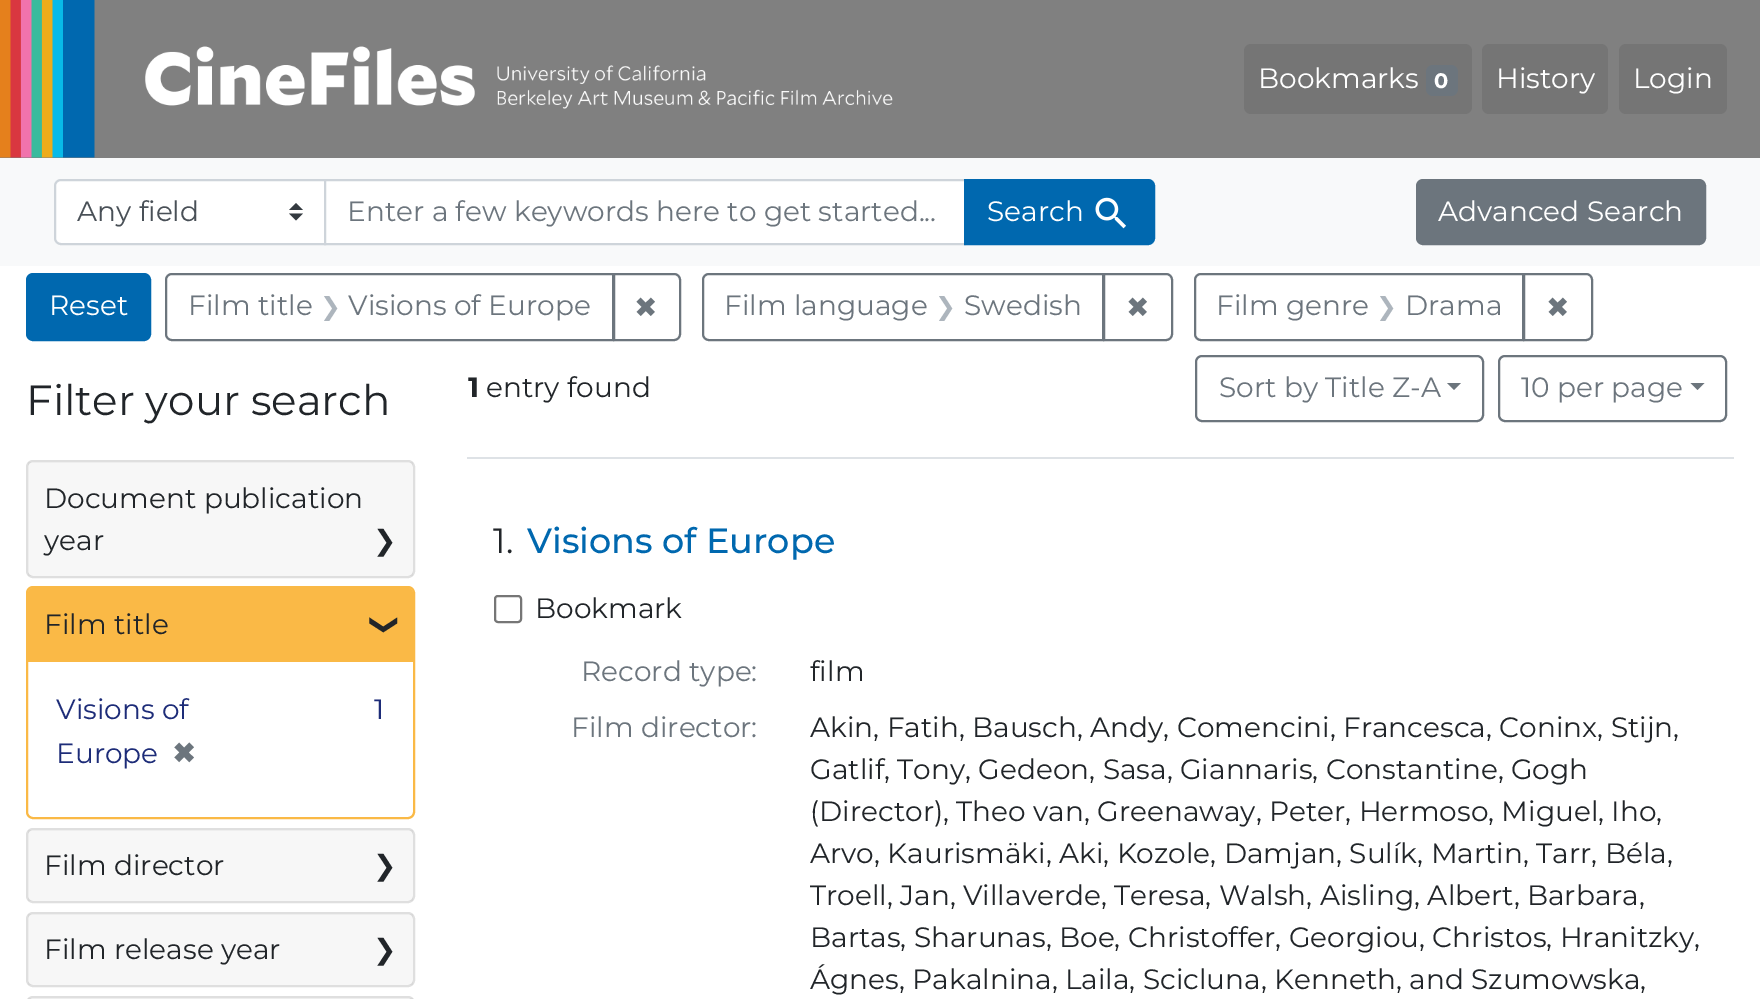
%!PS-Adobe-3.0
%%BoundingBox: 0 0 1760 999
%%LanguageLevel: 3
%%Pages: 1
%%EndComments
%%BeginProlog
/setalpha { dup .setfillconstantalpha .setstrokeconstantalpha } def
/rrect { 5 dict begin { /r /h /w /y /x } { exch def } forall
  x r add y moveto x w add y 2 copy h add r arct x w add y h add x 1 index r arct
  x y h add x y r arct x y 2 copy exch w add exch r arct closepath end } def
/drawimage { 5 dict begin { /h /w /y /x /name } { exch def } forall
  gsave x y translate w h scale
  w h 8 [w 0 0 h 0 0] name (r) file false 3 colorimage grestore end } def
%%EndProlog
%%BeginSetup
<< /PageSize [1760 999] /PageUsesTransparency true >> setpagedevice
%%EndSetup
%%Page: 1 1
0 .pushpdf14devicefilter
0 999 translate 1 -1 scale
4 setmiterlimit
1 setgray
0 0 1760 999 rectfill
0.502 setgray
0 0 1760 158 rectfill
(images/1.raw) 0 0 893 158 drawimage
0.459 setgray
1244 44 228 70 7 rrect fill
0.424 0.459 0.49 setrgbcolor
1426 65 32 31 7 rrect fill
0.459 setgray
1482 44 126 70 7 rrect fill
1619 44 108 70 7 rrect fill
0.973 0.976 0.98 setrgbcolor
0 158 1760 108 rectfill
1 setgray
newpath 61 179 moveto 326 179 lineto 326 245 lineto 61 245 lineto 57 245 54 242 54 238 curveto 54 186 lineto 54 182 57 179 61 179 curveto closepath fill
0.204 0.227 0.251 setrgbcolor
newpath 296 203 moveto 289 210 lineto 303 210 lineto closepath 296 220.5 moveto 289 213.5 lineto 303 213.5 lineto closepath fill
0.808 0.831 0.855 setrgbcolor
2 setlinewidth
newpath 61 180 moveto 325 180 lineto 325 244 lineto 61 244 lineto 57.5 244 55 241.5 55 238 curveto 55 186 lineto 55 182.5 57.5 180 61 180 curveto closepath stroke
1 setgray
newpath 325 180 moveto 965 180 lineto 965 244 lineto 325 244 lineto closepath gsave fill grestore
0.808 0.831 0.855 setrgbcolor
stroke
0 0.408 0.686 setrgbcolor
newpath 965 180 moveto 1148 180 lineto 1151.5 180 1154 182.5 1154 186 curveto 1154 238 lineto 1154 241.5 1151.5 244 1148 244 curveto 965 244 lineto closepath gsave fill grestore
stroke
(images/2.raw) 1095 197 31 32 drawimage
0.424 0.459 0.49 setrgbcolor
1417 180 288 64 6 rrect gsave fill grestore
stroke
0 0.408 0.686 setrgbcolor
27 274 123 66 6 rrect gsave fill grestore
stroke
0.424 0.459 0.49 setrgbcolor
newpath 172 274 moveto 613 274 lineto 613 340 lineto 172 340 lineto 168.5 340 166 337.5 166 334 curveto 166 280 lineto 166 276.5 168.5 274 172 274 curveto closepath stroke
newpath 614 274 moveto 674 274 lineto 677.5 274 680 276.5 680 280 curveto 680 334 lineto 680 337.5 677.5 340 674 340 curveto 614 340 lineto closepath stroke
newpath 709 274 moveto 1103 274 lineto 1103 340 lineto 709 340 lineto 705.5 340 703 337.5 703 334 curveto 703 280 lineto 703 276.5 705.5 274 709 274 curveto closepath stroke
newpath 1104 274 moveto 1166 274 lineto 1169.5 274 1172 276.5 1172 280 curveto 1172 334 lineto 1172 337.5 1169.5 340 1166 340 curveto 1104 340 lineto closepath stroke
newpath 1201 274 moveto 1523 274 lineto 1523 340 lineto 1201 340 lineto 1197.5 340 1195 337.5 1195 334 curveto 1195 280 lineto 1195 276.5 1197.5 274 1201 274 curveto closepath stroke
newpath 1524 274 moveto 1586 274 lineto 1589.5 274 1592 276.5 1592 280 curveto 1592 334 lineto 1592 337.5 1589.5 340 1586 340 curveto 1524 340 lineto closepath stroke
0.875 setgray
27 461 387 116 6 rrect stroke
0.03 setalpha
0 setgray
28 462 385 114 rectfill
1 setalpha
0.98 0.725 0.275 setrgbcolor
27 587 387 231 6 rrect stroke
newpath 33 588 moveto 408 588 lineto 411 588 413 590 413 593 curveto 413 662 lineto 28 662 lineto 28 593 lineto 28 590 30 588 33 588 curveto closepath fill
0.875 setgray
27 829 387 73 6 rrect stroke
0.03 setalpha
0 setgray
28 830 385 71 rectfill
1 setalpha
0.875 setgray
27 913 387 73 6 rrect stroke
0.03 setalpha
0 setgray
28 914 385 71 rectfill
1 setalpha
0.875 setgray
27 997 387 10 6 rrect stroke
0.03 setalpha
0 setgray
28 998 385 1 rectfill
1 setalpha
0.871 0.886 0.902 setrgbcolor
467 457 1267 2 rectfill
0.424 0.459 0.49 setrgbcolor
1196 356 287 65 6 rrect stroke
newpath 1447 383 moveto 1461 383 lineto 1454 390 lineto closepath fill
1499 356 227 65 6 rrect stroke
newpath 1690.5 383 moveto 1704.5 383 lineto 1697.5 390 lineto closepath fill
0.463 setgray
495 596 26 26 3 rrect stroke
/Montserrat-Regular [28 0 0 -28 0 0] selectfont
1 setgray
1258 88 moveto (Bookmarks) show
/Montserrat-Bold [21 0 0 -21 0 0] selectfont
1434 88 moveto (0) show
/Montserrat-Regular [28 0 0 -28 0 0] selectfont
1496 88 moveto (History) show
1633 88 moveto (Login) show
0.286 0.314 0.341 setrgbcolor
77 221 moveto (Any field) show
0.424 0.459 0.49 setrgbcolor
347 221 moveto (Enter a few keywords here to get started...) show
1 setgray
987 221 moveto (Search) show
1438 221 moveto (Advanced Search) show
49 315 moveto (Reset) show
0.424 0.459 0.49 setrgbcolor
188 315 moveto (Film title) show
/DejaVuSans-Regular [25 0 0 -25 0 0] selectfont
0.678 0.71 0.741 setrgbcolor
320 315 moveto (❯) show
/Montserrat-Regular [28 0 0 -28 0 0] selectfont
0.424 0.459 0.49 setrgbcolor
348 315 moveto (Visions of Europe) show
/DejaVuSans-Regular [28 0 0 -28 0 0] selectfont
634 317 moveto (✖) show
/Montserrat-Regular [28 0 0 -28 0 0] selectfont
724 315 moveto (Film language) show
/DejaVuSans-Regular [25 0 0 -25 0 0] selectfont
0.678 0.71 0.741 setrgbcolor
935 315 moveto (❯) show
/Montserrat-Regular [28 0 0 -28 0 0] selectfont
0.424 0.459 0.49 setrgbcolor
964 315 moveto (Swedish) show
/DejaVuSans-Regular [28 0 0 -28 0 0] selectfont
1126 317 moveto (✖) show
/Montserrat-Regular [28 0 0 -28 0 0] selectfont
1216 315 moveto (Film genre) show
/DejaVuSans-Regular [25 0 0 -25 0 0] selectfont
0.678 0.71 0.741 setrgbcolor
1376 315 moveto (❯) show
/Montserrat-Regular [28 0 0 -28 0 0] selectfont
0.424 0.459 0.49 setrgbcolor
1405 315 moveto (Drama) show
/DejaVuSans-Regular [28 0 0 -28 0 0] selectfont
1546 317 moveto (✖) show
/Montserrat-Regular [42 0 0 -42 0 0] selectfont
0.129 0.145 0.161 setrgbcolor
26 415 moveto (Filter your search) show
/Montserrat-Regular [28 0 0 -28 0 0] selectfont
44 508 moveto (Document publication) show
44 550 moveto (year) show
/DejaVuSans-Regular [28 0 0 -28 0 0] selectfont
373 550 moveto (❯) show
/Montserrat-Regular [28 0 0 -28 0 0] selectfont
44 634 moveto (Film title) show
/DejaVuSans-Regular [28 0 0 -28 0 0] selectfont
gsave 376 613 translate 90 rotate 0 0 moveto (❯) show grestore
/Montserrat-Regular [28 0 0 -28 0 0] selectfont
0.114 0.173 0.471 setrgbcolor
56 719 moveto (Visions of) show
56 763 moveto (Europe) show
/DejaVuSans-Bold [28 0 0 -28 0 0] selectfont
0.424 0.459 0.49 setrgbcolor
172 763 moveto (✖) show
/Montserrat-Regular [28 0 0 -28 0 0] selectfont
0.114 0.173 0.471 setrgbcolor
374 719 moveto (1) show
0.129 0.145 0.161 setrgbcolor
44 875 moveto (Film director) show
/DejaVuSans-Regular [28 0 0 -28 0 0] selectfont
373 875 moveto (❯) show
/Montserrat-Regular [28 0 0 -28 0 0] selectfont
44 959 moveto (Film release year) show
/DejaVuSans-Regular [28 0 0 -28 0 0] selectfont
373 959 moveto (❯) show
/Montserrat-Bold [28 0 0 -28 0 0] selectfont
468 397 moveto (1) show
/Montserrat-Regular [28 0 0 -28 0 0] selectfont
486 397 moveto (entry found) show
0.424 0.459 0.49 setrgbcolor
1219 397 moveto (Sort by Title Z-A) show
1521 397 moveto (10 per page) show
/Montserrat-Regular [35 0 0 -35 0 0] selectfont
0.129 0.145 0.161 setrgbcolor
493 553 moveto (1.) show
/Montserrat-Medium [35 0 0 -35 0 0] selectfont
0 0.408 0.686 setrgbcolor
527 553 moveto (Visions of Europe) show
/Montserrat-Regular [28 0 0 -28 0 0] selectfont
0.129 0.145 0.161 setrgbcolor
535 618 moveto (Bookmark) show
0.424 0.459 0.49 setrgbcolor
581 681 moveto (Record type:) show
0.129 0.145 0.161 setrgbcolor
810 681 moveto (film) show
0.424 0.459 0.49 setrgbcolor
571 737 moveto (Film director:) show
0.129 0.145 0.161 setrgbcolor
810 737 moveto (Akin, Fatih, Bausch, Andy, Comencini, Francesca, Coninx, Stijn,) show
810 779 moveto (Gatlif, Tony, Gedeon, Sasa, Giannaris, Constantine, Gogh) show
810 821 moveto (\(Director\), Theo van, Greenaway, Peter, Hermoso, Miguel, Iho,) show
810 863 moveto (Arvo, Kaurismäki, Aki, Kozole, Damjan, Sulík, Martin, Tarr, Béla,) show
810 905 moveto (Troell, Jan, Villaverde, Teresa, Walsh, Aisling, Albert, Barbara,) show
810 947 moveto (Bartas, Sharunas, Boe, Christoffer, Georgiou, Christos, Hranitzky,) show
810 989 moveto (Ágnes, Pakalnina, Laila, Scicluna, Kenneth, and Szumowska,) show
.poppdf14devicefilter showpage
%%EOF
